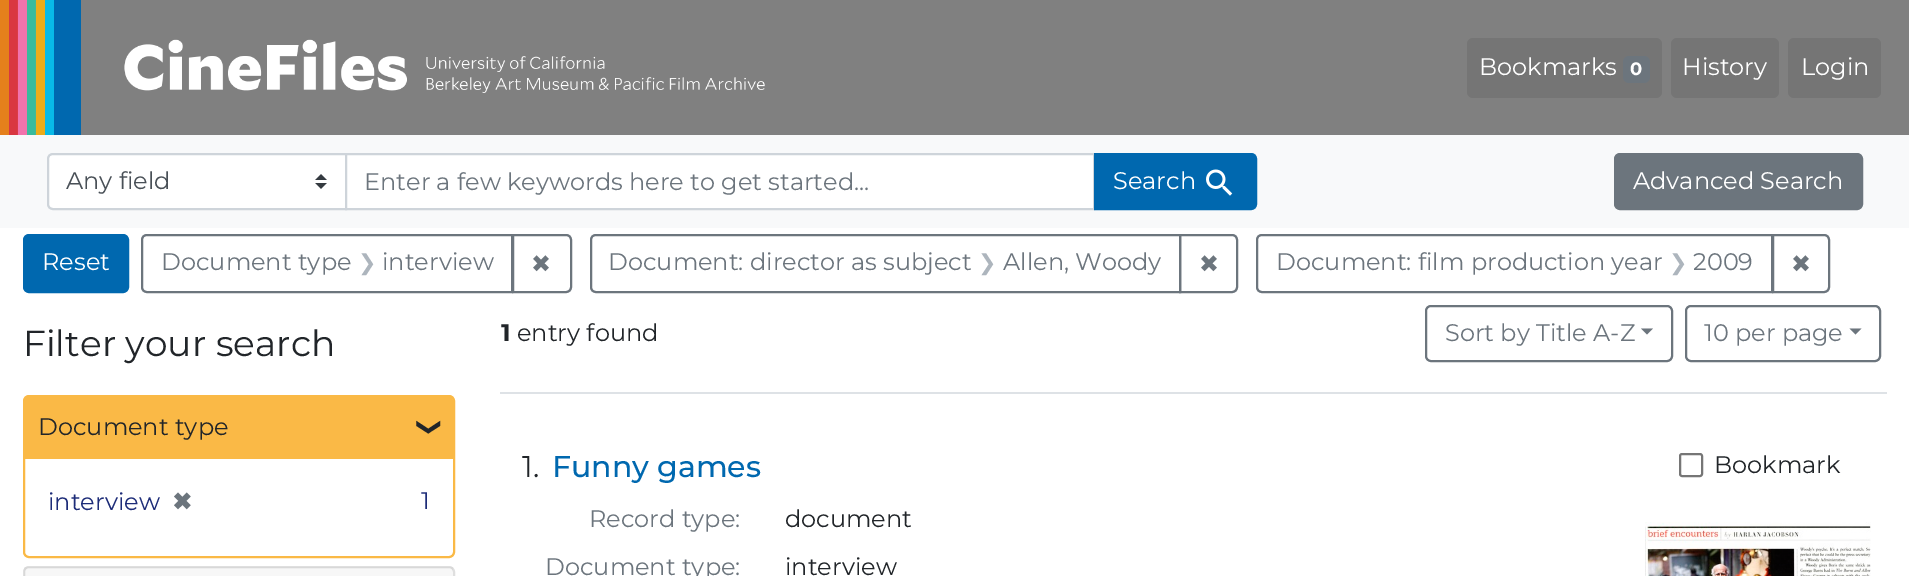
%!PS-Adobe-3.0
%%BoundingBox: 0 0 1909 576
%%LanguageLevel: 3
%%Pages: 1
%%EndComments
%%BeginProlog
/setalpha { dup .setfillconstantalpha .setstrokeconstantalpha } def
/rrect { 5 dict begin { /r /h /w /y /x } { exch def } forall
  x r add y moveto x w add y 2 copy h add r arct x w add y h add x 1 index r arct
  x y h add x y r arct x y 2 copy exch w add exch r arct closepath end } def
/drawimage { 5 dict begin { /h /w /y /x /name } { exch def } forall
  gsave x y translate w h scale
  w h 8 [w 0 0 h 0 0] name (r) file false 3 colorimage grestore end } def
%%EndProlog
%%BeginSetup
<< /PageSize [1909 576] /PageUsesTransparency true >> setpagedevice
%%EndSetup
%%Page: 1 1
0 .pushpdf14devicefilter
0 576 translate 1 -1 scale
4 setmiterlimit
1 setgray
0 0 1909 576 rectfill
0.502 setgray
765 0 1144 135 rectfill
(images/1.raw) 0 0 765 135 drawimage
0.459 setgray
1467 38 195 60 6 rrect fill
0.424 0.459 0.49 setrgbcolor
1623 56 27 27 6 rrect fill
0.459 setgray
1671 38 108 60 6 rrect fill
1788 38 93 60 6 rrect fill
0.973 0.976 0.98 setrgbcolor
0 135 1909 93 rectfill
1 setgray
newpath 53 153 moveto 347 153 lineto 347 210 lineto 53 210 lineto 49.5 210 47 207.5 47 204 curveto 47 159 lineto 47 155.5 49.5 153 53 153 curveto closepath fill
(images/2.raw) 315 174 12 15 drawimage
0.808 0.831 0.855 setrgbcolor
2 setlinewidth
newpath 53 154 moveto 346 154 lineto 346 209 lineto 53 209 lineto 50 209 48 207 48 204 curveto 48 159 lineto 48 156 50 154 53 154 curveto closepath stroke
1 setgray
newpath 346 154 moveto 1094 154 lineto 1094 209 lineto 346 209 lineto closepath gsave fill grestore
0.808 0.831 0.855 setrgbcolor
stroke
0 0.408 0.686 setrgbcolor
newpath 1095 154 moveto 1251 154 lineto 1254 154 1256 156 1256 159 curveto 1256 204 lineto 1256 207 1254 209 1251 209 curveto 1095 209 lineto closepath gsave fill grestore
stroke
(images/3.raw) 1206 169 27 27 drawimage
0.424 0.459 0.49 setrgbcolor
1615 154 247 55 5 rrect gsave fill grestore
stroke
0 0.408 0.686 setrgbcolor
24 235 104 57 5 rrect gsave fill grestore
stroke
0.424 0.459 0.49 setrgbcolor
newpath 147 235 moveto 512 235 lineto 512 292 lineto 147 292 lineto 144 292 142 290 142 287 curveto 142 240 lineto 142 237 144 235 147 235 curveto closepath stroke
newpath 513 235 moveto 566 235 lineto 569 235 571 237 571 240 curveto 571 287 lineto 571 290 569 292 566 292 curveto 513 292 lineto closepath stroke
newpath 596 235 moveto 1180 235 lineto 1180 292 lineto 596 292 lineto 593 292 591 290 591 287 curveto 591 240 lineto 591 237 593 235 596 235 curveto closepath stroke
newpath 1180 235 moveto 1232 235 lineto 1235 235 1237 237 1237 240 curveto 1237 287 lineto 1237 290 1235 292 1232 292 curveto 1180 292 lineto closepath stroke
newpath 1262 235 moveto 1772 235 lineto 1772 292 lineto 1262 292 lineto 1259 292 1257 290 1257 287 curveto 1257 240 lineto 1257 237 1259 235 1262 235 curveto closepath stroke
newpath 1773 235 moveto 1824 235 lineto 1827 235 1829 237 1829 240 curveto 1829 287 lineto 1829 290 1827 292 1824 292 curveto 1773 292 lineto closepath stroke
0.98 0.725 0.275 setrgbcolor
24 396 430 161 5 rrect stroke
newpath 29 396 moveto 448 396 lineto 451 396 453 398 453 401 curveto 453 459 lineto 24 459 lineto 24 401 lineto 24 398 26 396 29 396 curveto closepath fill
0.875 setgray
24 567 430 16 5 rrect stroke
0.03 setalpha
0 setgray
24 567 429 9 rectfill
1 setalpha
0.871 0.886 0.902 setrgbcolor
500 392 1387 2 rectfill
0.424 0.459 0.49 setrgbcolor
1426 306 246 55 5 rrect stroke
newpath 1641 328.5 moveto 1653 328.5 lineto 1647 334.5 lineto closepath fill
1686 306 194 55 5 rrect stroke
newpath 1849.5 328.5 moveto 1861.5 328.5 lineto 1855.5 334.5 lineto closepath fill
0.463 setgray
1680 454 22 22 2 rrect stroke
(images/4.raw) 1645 522 226 54 drawimage
/Montserrat-Regular [24 0 0 -24 0 0] selectfont
1 setgray
1479 75 moveto (Bookmarks) show
/Montserrat-Bold [18 0 0 -18 0 0] selectfont
1630 75 moveto (0) show
/Montserrat-Regular [24 0 0 -24 0 0] selectfont
1682 75 moveto (History) show
1801 75 moveto (Login) show
0.286 0.314 0.341 setrgbcolor
66 189 moveto (Any field) show
0.424 0.459 0.49 setrgbcolor
364 190 moveto (Enter a few keywords here to get started...) show
1 setgray
1113 189 moveto (Search) show
1633 189 moveto (Advanced Search) show
42 270 moveto (Reset) show
0.424 0.459 0.49 setrgbcolor
161 270 moveto (Document type) show
/DejaVuSans-Regular [22 0 0 -22 0 0] selectfont
0.678 0.71 0.741 setrgbcolor
358 270 moveto (❯) show
/Montserrat-Regular [24 0 0 -24 0 0] selectfont
0.424 0.459 0.49 setrgbcolor
382 270 moveto (interview) show
/DejaVuSans-Regular [24 0 0 -24 0 0] selectfont
531 272 moveto (✖) show
/Montserrat-Regular [24 0 0 -24 0 0] selectfont
608 270 moveto (Document: director as subject) show
/DejaVuSans-Regular [22 0 0 -22 0 0] selectfont
0.678 0.71 0.741 setrgbcolor
978 270 moveto (❯) show
/Montserrat-Regular [24 0 0 -24 0 0] selectfont
0.424 0.459 0.49 setrgbcolor
1003 270 moveto (Allen, Woody) show
/DejaVuSans-Regular [24 0 0 -24 0 0] selectfont
1199 272 moveto (✖) show
/Montserrat-Regular [24 0 0 -24 0 0] selectfont
1276 270 moveto (Document: film production year) show
/DejaVuSans-Regular [22 0 0 -22 0 0] selectfont
0.678 0.71 0.741 setrgbcolor
1669 270 moveto (❯) show
/Montserrat-Regular [24 0 0 -24 0 0] selectfont
0.424 0.459 0.49 setrgbcolor
1693 270 moveto (2009) show
/DejaVuSans-Regular [24 0 0 -24 0 0] selectfont
1791 272 moveto (✖) show
/Montserrat-Regular [36 0 0 -36 0 0] selectfont
0.129 0.145 0.161 setrgbcolor
23 356 moveto (Filter your search) show
/Montserrat-Regular [24 0 0 -24 0 0] selectfont
38 435 moveto (Document type) show
/DejaVuSans-Regular [24 0 0 -24 0 0] selectfont
gsave 422 417 translate 90 rotate 0 0 moveto (❯) show grestore
/Montserrat-Regular [24 0 0 -24 0 0] selectfont
0.114 0.173 0.471 setrgbcolor
48 510 moveto (interview) show
/DejaVuSans-Bold [24 0 0 -24 0 0] selectfont
0.424 0.459 0.49 setrgbcolor
172 510 moveto (✖) show
/Montserrat-Regular [24 0 0 -24 0 0] selectfont
0.114 0.173 0.471 setrgbcolor
421 509 moveto (1) show
/Montserrat-Bold [24 0 0 -24 0 0] selectfont
0.129 0.145 0.161 setrgbcolor
501 341 moveto (1) show
/Montserrat-Regular [24 0 0 -24 0 0] selectfont
517 341 moveto (entry found) show
0.424 0.459 0.49 setrgbcolor
1445 341 moveto (Sort by Title A-Z) show
1704 341 moveto (10 per page) show
/Montserrat-Regular [30 0 0 -30 0 0] selectfont
0.129 0.145 0.161 setrgbcolor
522 477 moveto (1.) show
/Montserrat-Medium [30 0 0 -30 0 0] selectfont
0 0.408 0.686 setrgbcolor
552 477 moveto (Funny games) show
/Montserrat-Regular [24 0 0 -24 0 0] selectfont
0.129 0.145 0.161 setrgbcolor
1714 473 moveto (Bookmark) show
0.424 0.459 0.49 setrgbcolor
589 527 moveto (Record type:) show
0.129 0.145 0.161 setrgbcolor
785 527 moveto (document) show
0.424 0.459 0.49 setrgbcolor
545 575 moveto (Document type:) show
0.129 0.145 0.161 setrgbcolor
785 575 moveto (interview) show
.poppdf14devicefilter showpage
%%EOF
